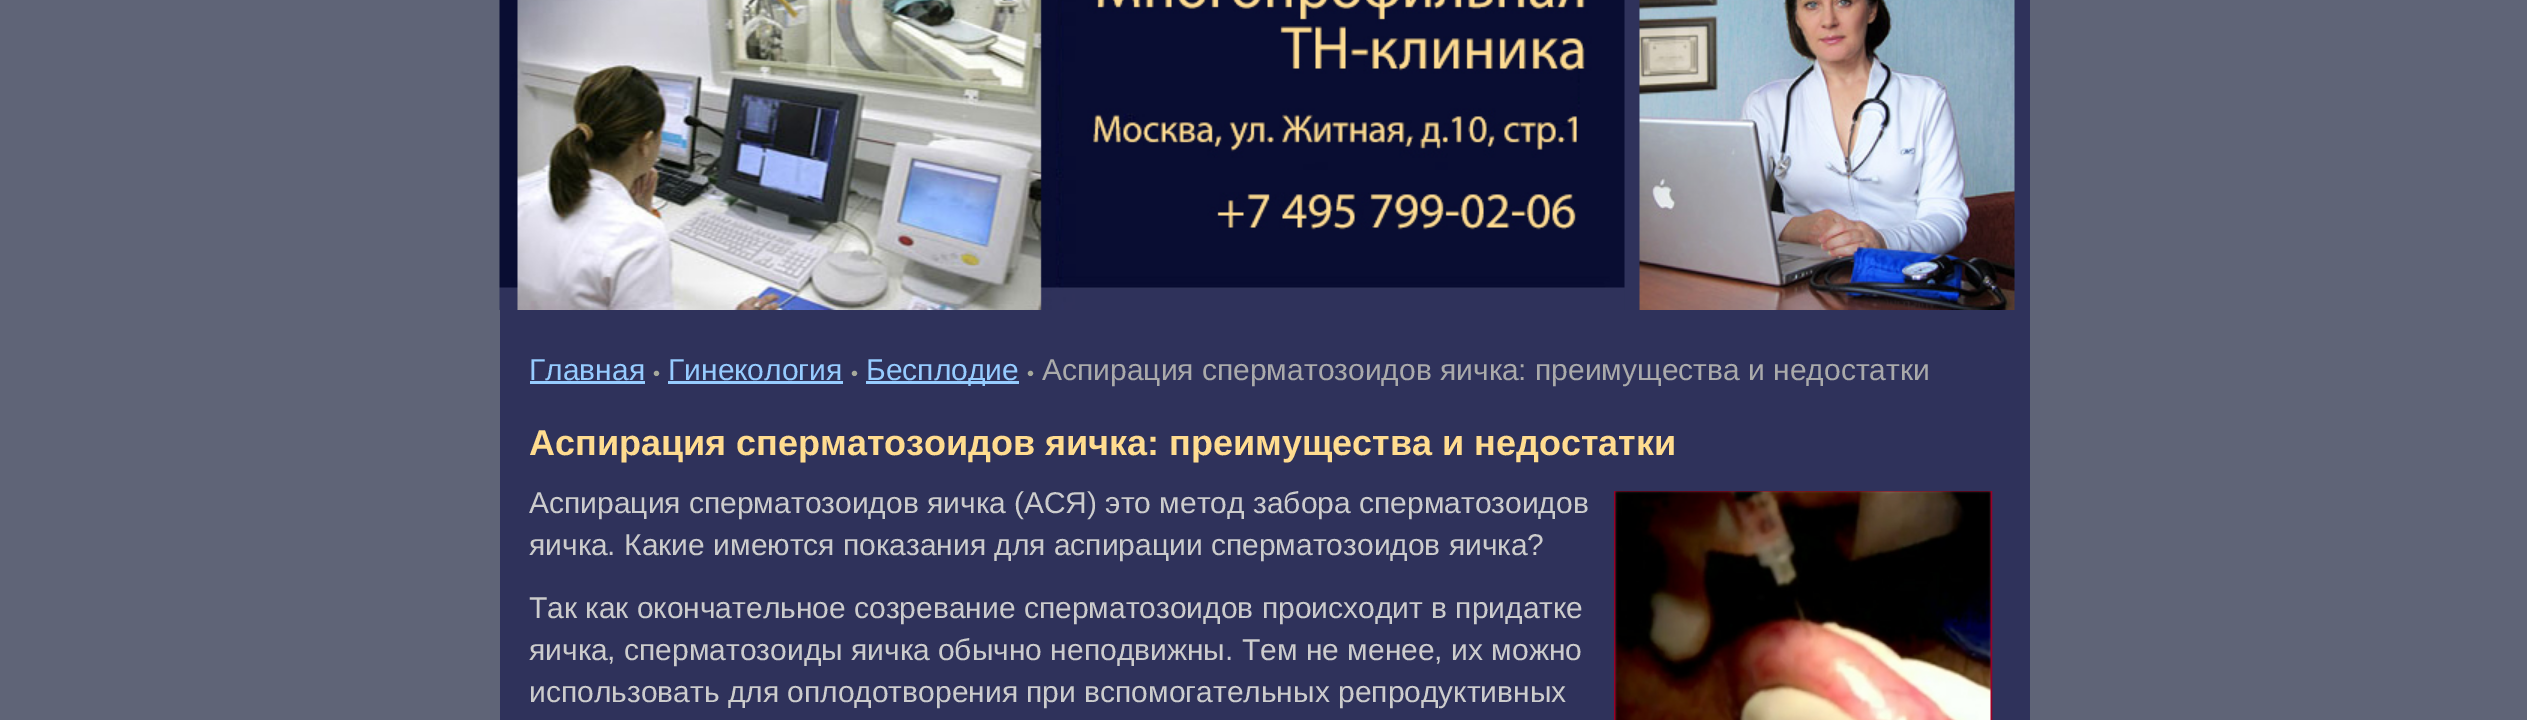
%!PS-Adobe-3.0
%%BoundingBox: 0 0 2527 720
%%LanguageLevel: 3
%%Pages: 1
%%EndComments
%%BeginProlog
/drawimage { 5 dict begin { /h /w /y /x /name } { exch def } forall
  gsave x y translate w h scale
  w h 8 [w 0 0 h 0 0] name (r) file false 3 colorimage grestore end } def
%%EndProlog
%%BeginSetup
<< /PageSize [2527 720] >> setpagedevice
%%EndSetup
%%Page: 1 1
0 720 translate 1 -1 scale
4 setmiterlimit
0.373 0.392 0.467 setrgbcolor
0 0 2527 720 rectfill
0.184 0.196 0.357 setrgbcolor
500 0 1530 720 rectfill
(images/1.raw) 499 0 1126 310 drawimage
(images/2.raw) 1639 0 376 310 drawimage
0.588 0.8 1 setrgbcolor
530 381 115 3 rectfill
668 381 175 3 rectfill
866 381 153 3 rectfill
0.604 0 0.153 setrgbcolor
2 setlinewidth
1615 492 376 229 rectstroke
(images/3.raw) 1615 491 376 229 drawimage
/LiberationSans-Regular [30 0 0 -30 0 0] selectfont
0.588 0.8 1 setrgbcolor
529 380 moveto (Главная) show
/LiberationSans-Regular [20 0 0 -20 0 0] selectfont
0.651 0.663 0.608 setrgbcolor
653 380 moveto (•) show
/LiberationSans-Regular [30 0 0 -30 0 0] selectfont
0.588 0.8 1 setrgbcolor
668 380 moveto (Гинекология) show
/LiberationSans-Regular [20 0 0 -20 0 0] selectfont
0.651 0.663 0.608 setrgbcolor
851 380 moveto (•) show
/LiberationSans-Regular [30 0 0 -30 0 0] selectfont
0.588 0.8 1 setrgbcolor
866 380 moveto (Бесплодие) show
/LiberationSans-Regular [20 0 0 -20 0 0] selectfont
0.651 0.663 0.608 setrgbcolor
1027 380 moveto (•) show
/LiberationSans-Regular [30 0 0 -30 0 0] selectfont
0.667 setgray
1042 380 moveto (Аспирация сперматозоидов яичка: преимущества и недостатки) show
/LiberationSans-Bold [36 0 0 -36 0 0] selectfont
1 0.863 0.561 setrgbcolor
529 455 moveto (Аспирация сперматозоидов яичка: преимущества и недостатки) show
/LiberationSans-Regular [30 0 0 -30 0 0] selectfont
0.8 setgray
529 513 moveto (Аспирация сперматозоидов яичка \(АСЯ\) это метод забора сперматозоидов) show
529 555 moveto (яичка. Какие имеются показания для аспирации сперматозоидов яичка?) show
529 618 moveto (Так как окончательное созревание сперматозоидов происходит в придатке) show
529 660 moveto (яичка, сперматозоиды яичка обычно неподвижны. Тем не менее, их можно) show
529 702 moveto (использовать для оплодотворения при вспомогательных репродуктивных) show
showpage
%%EOF
